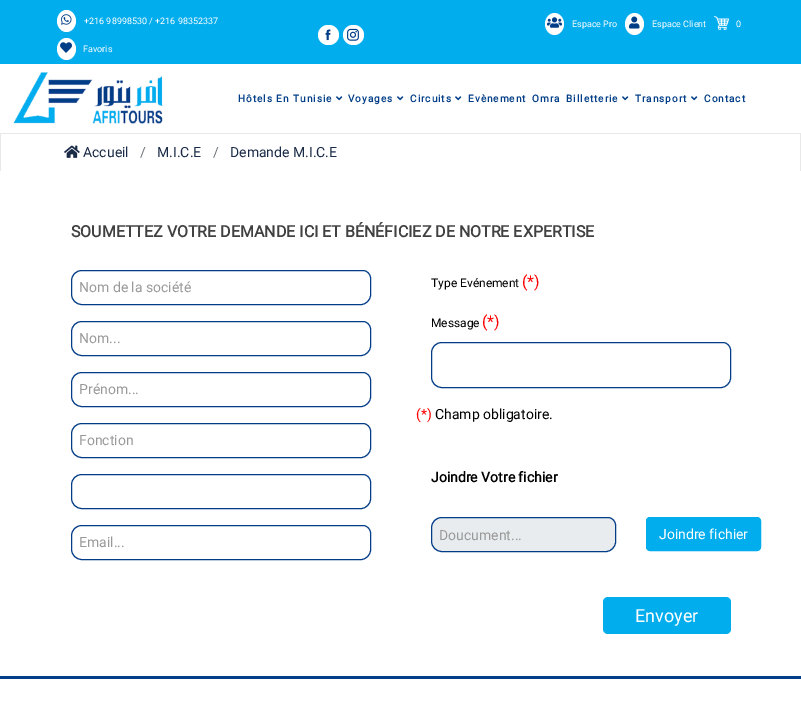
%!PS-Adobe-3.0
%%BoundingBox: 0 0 801 721
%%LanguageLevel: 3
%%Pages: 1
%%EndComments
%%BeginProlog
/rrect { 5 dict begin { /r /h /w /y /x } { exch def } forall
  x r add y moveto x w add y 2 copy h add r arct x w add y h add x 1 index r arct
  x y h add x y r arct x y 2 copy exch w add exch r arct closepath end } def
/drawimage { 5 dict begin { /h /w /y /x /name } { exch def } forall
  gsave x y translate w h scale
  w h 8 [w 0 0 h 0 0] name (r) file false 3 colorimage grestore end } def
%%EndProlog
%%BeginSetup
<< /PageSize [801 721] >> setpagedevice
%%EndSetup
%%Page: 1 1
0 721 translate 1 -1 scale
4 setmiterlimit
1 setgray
0 0 801 721 rectfill
0.008 0.678 0.933 setrgbcolor
0 0 801 64 rectfill
1 setgray
newpath 66.5 10 moveto 71.5 10 76 15 76 21 curveto 76 27 71.5 32 66.5 32 curveto 61.5 32 57 27 57 21 curveto 57 15 61.5 10 66.5 10 curveto closepath fill
(images/1.raw) 61 14 11 11 drawimage
newpath 66.5 38 moveto 71.5 38 76 43 76 49 curveto 76 55 71.5 60 66.5 60 curveto 61.5 60 57 55 57 49 curveto 57 43 61.5 38 66.5 38 curveto closepath fill
(images/2.raw) 60 42 12 11 drawimage
318 25 21 20 10 rrect fill
343 25 21 20 10 rrect fill
(images/3.raw) 325 29 6 12 drawimage
(images/4.raw) 347 28 12 13 drawimage
newpath 554.5 13 moveto 559.5 13 564 18 564 24 curveto 564 30 559.5 35 554.5 35 curveto 549.5 35 545 30 545 24 curveto 545 18 549.5 13 554.5 13 curveto closepath fill
(images/5.raw) 547 17 15 11 drawimage
newpath 634.5 13 moveto 639.5 13 644 18 644 24 curveto 644 30 639.5 35 634.5 35 curveto 629.5 35 625 30 625 24 curveto 625 18 629.5 13 634.5 13 curveto closepath fill
(images/6.raw) 629 16 11 13 drawimage
(images/7.raw) 714 16 15 14 drawimage
(images/8.raw) 13 72 150 52 drawimage
(images/9.raw) 336 96 7 5 drawimage
(images/9.raw) 397 96 7 5 drawimage
(images/9.raw) 455 96 7 5 drawimage
(images/9.raw) 622 96 7 5 drawimage
(images/9.raw) 691 96 7 5 drawimage
0.91 setgray
0 133 801 1 rectfill
800 133 1 38 rectfill
0 133 1 38 rectfill
(images/10.raw) 64 145 16 13 drawimage
0.012 0.239 0.529 setrgbcolor
newpath 82 270.5 moveto 363 270.5 lineto 367 270.5 370.5 274 370.5 278 curveto 370.5 295 lineto 370.5 300 366 304.5 361 304.5 curveto 82 304.5 lineto 76 304.5 71.5 300 71.5 294 curveto 71.5 281 lineto 71.5 275 76 270.5 82 270.5 curveto closepath stroke
newpath 82 321.5 moveto 363 321.5 lineto 367 321.5 370.5 325 370.5 329 curveto 370.5 346 lineto 370.5 351 366 355.5 361 355.5 curveto 82 355.5 lineto 76 355.5 71.5 351 71.5 345 curveto 71.5 332 lineto 71.5 326 76 321.5 82 321.5 curveto closepath stroke
newpath 82 372.5 moveto 363 372.5 lineto 367 372.5 370.5 376 370.5 380 curveto 370.5 397 lineto 370.5 402 366 406.5 361 406.5 curveto 82 406.5 lineto 76 406.5 71.5 402 71.5 396 curveto 71.5 383 lineto 71.5 377 76 372.5 82 372.5 curveto closepath stroke
newpath 82 423.5 moveto 363 423.5 lineto 367 423.5 370.5 427 370.5 431 curveto 370.5 448 lineto 370.5 453 366 457.5 361 457.5 curveto 82 457.5 lineto 76 457.5 71.5 453 71.5 447 curveto 71.5 434 lineto 71.5 428 76 423.5 82 423.5 curveto closepath stroke
newpath 82 474.5 moveto 363 474.5 lineto 367 474.5 370.5 478 370.5 482 curveto 370.5 499 lineto 370.5 504 366 508.5 361 508.5 curveto 82 508.5 lineto 76 508.5 71.5 504 71.5 498 curveto 71.5 485 lineto 71.5 479 76 474.5 82 474.5 curveto closepath stroke
newpath 82 525.5 moveto 363 525.5 lineto 367 525.5 370.5 529 370.5 533 curveto 370.5 550 lineto 370.5 555 366 559.5 361 559.5 curveto 82 559.5 lineto 76 559.5 71.5 555 71.5 549 curveto 71.5 536 lineto 71.5 530 76 525.5 82 525.5 curveto closepath stroke
newpath 442 342.5 moveto 723 342.5 lineto 727 342.5 730.5 346 730.5 350 curveto 730.5 378 lineto 730.5 383 726 387.5 721 387.5 curveto 442 387.5 lineto 436 387.5 431.5 383 431.5 377 curveto 431.5 353 lineto 431.5 347 436 342.5 442 342.5 curveto closepath stroke
0.914 0.925 0.937 setrgbcolor
newpath 442 517.5 moveto 608 517.5 lineto 612 517.5 615.5 521 615.5 525 curveto 615.5 542 lineto 615.5 547 611 551.5 606 551.5 curveto 442 551.5 lineto 436 551.5 431.5 547 431.5 541 curveto 431.5 528 lineto 431.5 522 436 517.5 442 517.5 curveto closepath gsave fill grestore
0.012 0.239 0.529 setrgbcolor
stroke
0.008 0.678 0.933 setrgbcolor
646.5 517.5 114 33 3.5 rrect gsave fill grestore
stroke
603 597 128 37 5 rrect fill
0.008 0.243 0.529 setrgbcolor
0 676 801 3 rectfill
/Roboto-Regular [9 0 0 -9 0 0] selectfont
1 setgray
84 24 moveto (+216 98998530 / +216 98352337) show
83 52 moveto (Favoris) show
572 27 moveto (Espace Pro) show
652 27 moveto (Espace Client) show
736 27 moveto (0) show
/Roboto-Bold [10 0 0 -10 0 0] selectfont
0.008 0.243 0.529 setrgbcolor
238 102 moveto 1 0 (Hôtels En Tunisie) ashow
348 102 moveto 1 0 (Voyages) ashow
410 102 moveto 1 0 (Circuits) ashow
468 102 moveto 1 0 (Evènement) ashow
532 102 moveto 1 0 (Omra) ashow
566 102 moveto 1 0 (Billetterie) ashow
635 102 moveto 1 0 (Transport) ashow
704 102 moveto 1 0 (Contact) ashow
/Roboto-Regular [14 0 0 -14 0 0] selectfont
0.102 0.169 0.278 setrgbcolor
83 157 moveto (Accueil) show
0.424 0.459 0.49 setrgbcolor
140 157 moveto (/) show
0.102 0.169 0.278 setrgbcolor
157 157 moveto (M.I.C.E) show
0.424 0.459 0.49 setrgbcolor
213 157 moveto (/) show
0.102 0.169 0.278 setrgbcolor
230 157 moveto (Demande M.I.C.E) show
/Roboto-Bold [16 0 0 -16 0 0] selectfont
0.255 setgray
71 237 moveto (SOUMETTEZ VOTRE DEMANDE ICI ET BÉNÉFICIEZ DE NOTRE EXPERTISE) show
/Roboto-Regular [14 0 0 -14 0 0] selectfont
0.6 setgray
79 292 moveto (Nom de la société) show
79 343 moveto (Nom...) show
79 394 moveto (Prénom...) show
79 445 moveto (Fonction) show
79 547 moveto (Email...) show
/Roboto-Regular [12 0 0 -12 0 0] selectfont
0 setgray
431 287 moveto (Type Evénement) show
/Roboto-Regular [16 0 0 -16 0 0] selectfont
1 0 0 setrgbcolor
522 287 moveto (\(*\)) show
/Roboto-Regular [12 0 0 -12 0 0] selectfont
0 setgray
431 327 moveto (Message) show
/Roboto-Regular [16 0 0 -16 0 0] selectfont
1 0 0 setrgbcolor
482 327 moveto (\(*\)) show
/Roboto-Regular [14 0 0 -14 0 0] selectfont
416 419 moveto (\(*\)) show
0 setgray
435 419 moveto (Champ obligatoire.) show
/Roboto-Bold [14 0 0 -14 0 0] selectfont
431 482 moveto (Joindre Votre fichier) show
/Roboto-Regular [14 0 0 -14 0 0] selectfont
0.6 setgray
439 540 moveto (Doucument...) show
1 setgray
659 539 moveto (Joindre fichier) show
/Roboto-Regular [18 0 0 -18 0 0] selectfont
635 622 moveto (Envoyer) show
showpage
%%EOF
